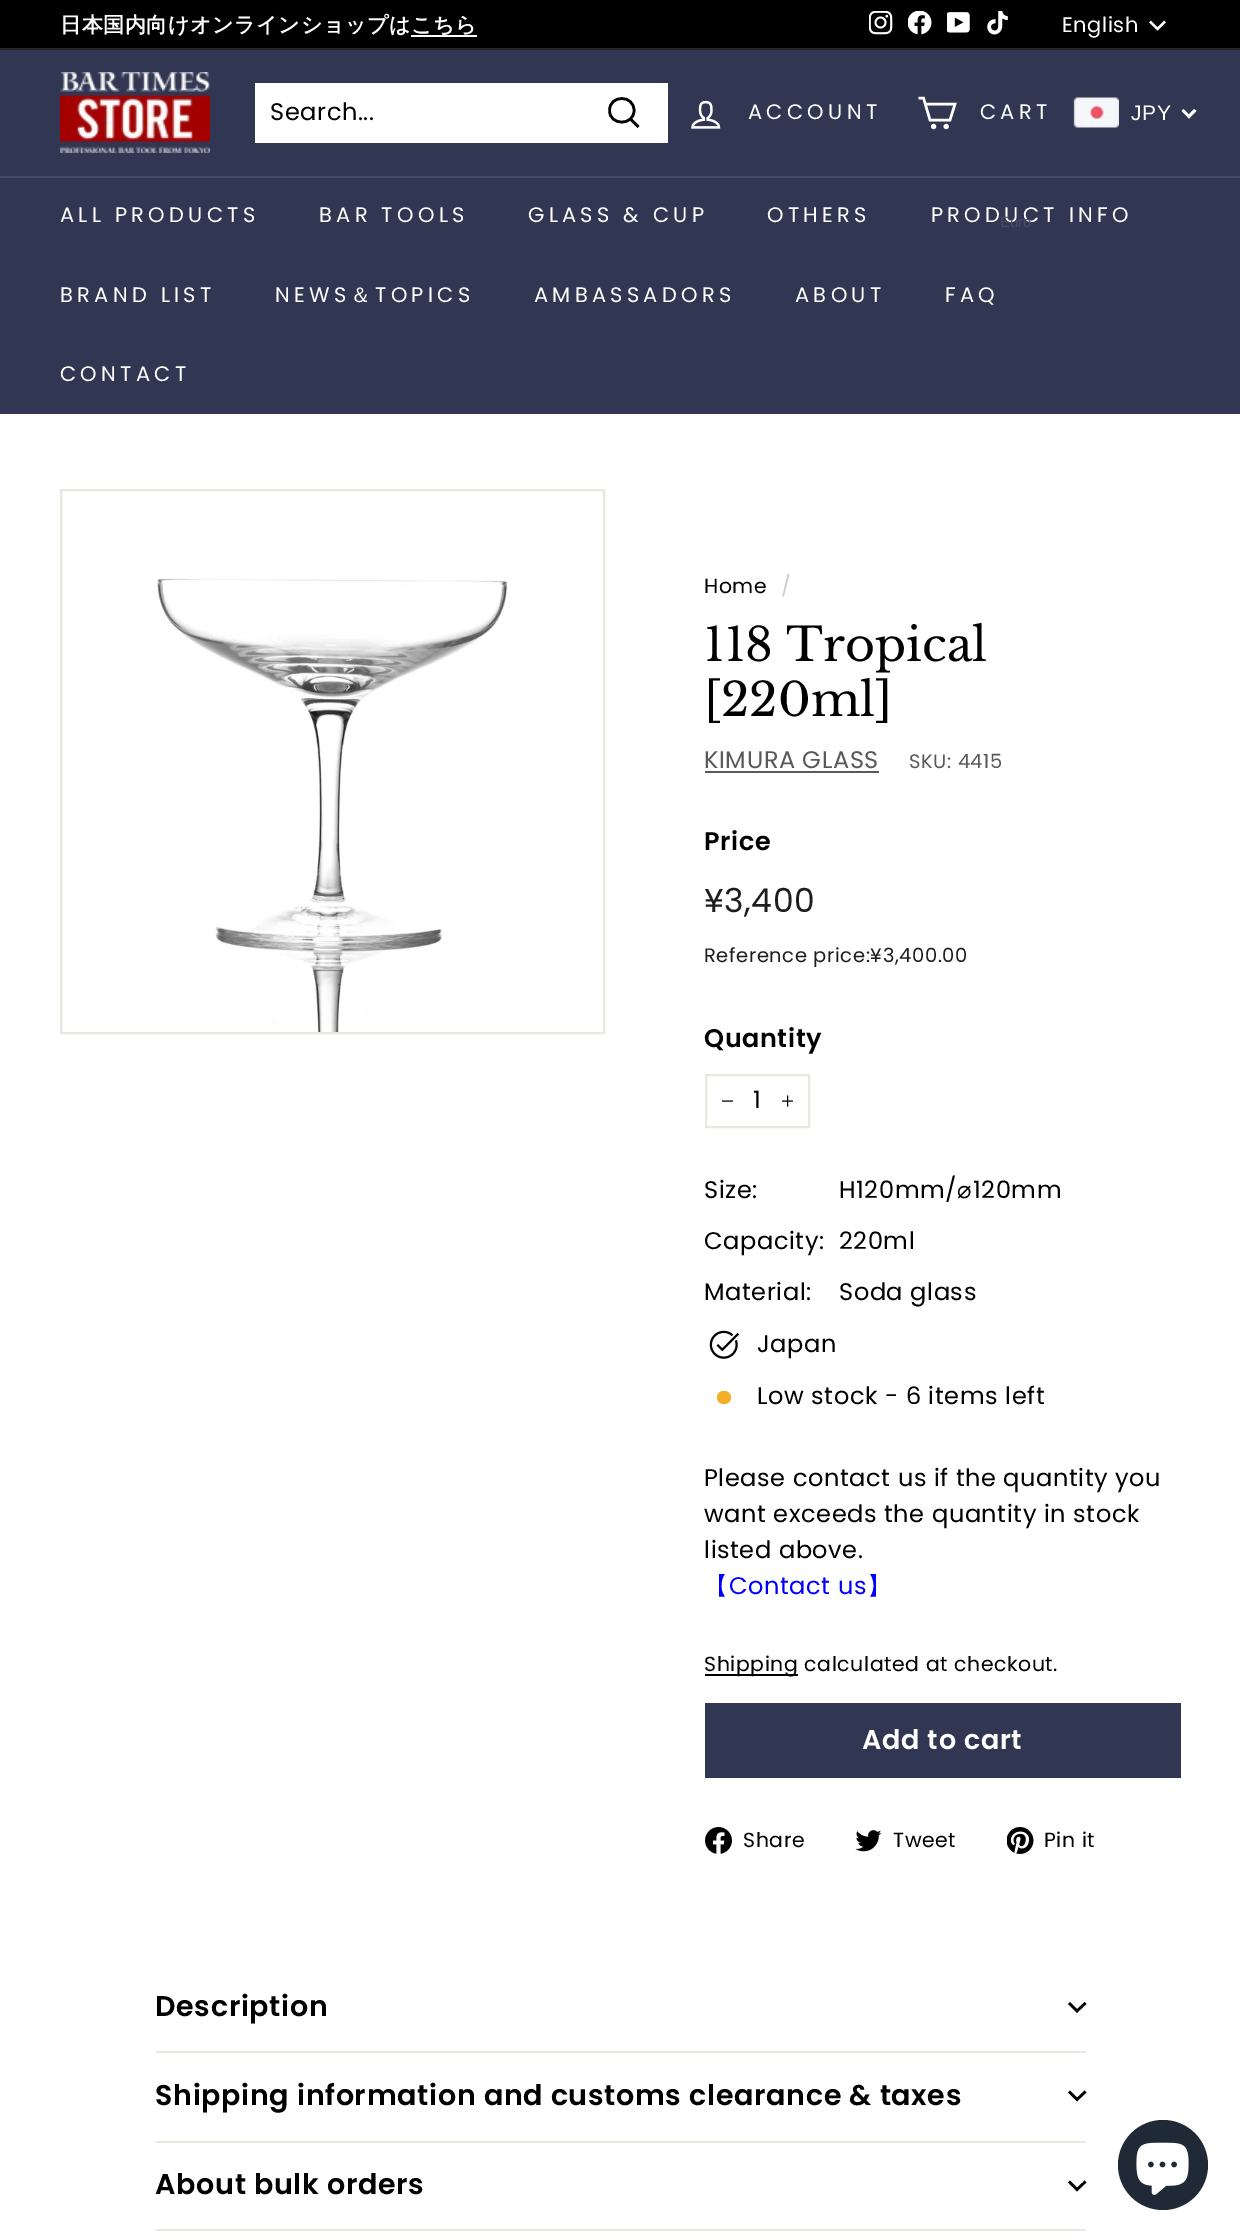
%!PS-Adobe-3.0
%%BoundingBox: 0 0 1240 2240
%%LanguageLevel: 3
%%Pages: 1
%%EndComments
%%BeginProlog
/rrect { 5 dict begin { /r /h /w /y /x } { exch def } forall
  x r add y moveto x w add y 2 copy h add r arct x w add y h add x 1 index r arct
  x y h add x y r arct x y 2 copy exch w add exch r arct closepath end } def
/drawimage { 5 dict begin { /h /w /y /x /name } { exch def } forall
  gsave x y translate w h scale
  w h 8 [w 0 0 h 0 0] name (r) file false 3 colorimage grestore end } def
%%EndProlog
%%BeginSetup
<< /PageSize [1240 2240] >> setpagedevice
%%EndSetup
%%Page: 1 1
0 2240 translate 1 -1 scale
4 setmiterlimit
1 setgray
0 0 1240 2240 rectfill
0 setgray
0 0 1240 48 rectfill
1 setgray
411 35 66 2 rectfill
(images/1.raw) 869 11 24 24 drawimage
(images/2.raw) 908 11 24 24 drawimage
(images/3.raw) 947 12 23 21 drawimage
(images/4.raw) 987 11 21 24 drawimage
2.4 setlinewidth
newpath 1150 21.5 moveto 1157.5 29 lineto 1165 21.5 lineto stroke
0.149 setgray
0 48 1240 2 rectfill
0.192 0.212 0.322 setrgbcolor
0 50 1240 126 rectfill
(images/5.raw) 60 72 150 81 drawimage
1 setgray
255 83 413 60 rectfill
0 setgray
2.6 setlinewidth
newpath 634 110.5 moveto 634 126 609.5 126 609.5 110.5 curveto 609.5 94.5 634 94.5 634 110.5 curveto closepath 638.5 127 moveto 630.5 119 lineto stroke
(images/6.raw) 691 100 30 29 drawimage
1 setgray
2.5 setlinewidth
newpath 925.5 104 moveto 955 104 lineto 950 120 lineto 930 120 lineto 923.5 98 lineto 918.5 98 lineto stroke
newpath 933.6 126.5 1.3 0 360 arc closepath stroke
newpath 946.2 126.5 1.3 0 360 arc closepath stroke
(images/7.raw) 1073 97 46 31 drawimage
newpath 1194 109 moveto 1196.5 111 lineto 1189 118.5 lineto 1187 116.5 lineto closepath fill
newpath 1183.5 109 moveto 1191 116.5 lineto 1189 118.5 lineto 1181.5 111 lineto closepath fill
0.192 0.212 0.322 setrgbcolor
newpath 0 176 moveto 0 414 lineto 1240 414 lineto 1240 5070 lineto 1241 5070 lineto 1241 176 lineto closepath fill
0.275 0.29 0.388 setrgbcolor
0 176 1240 2 rectfill
0.91 0.91 0.882 setrgbcolor
2 setlinewidth
61 490 543 543 rectstroke
(images/8.raw) 149 578 359 454 drawimage
0.349 setgray
705 771 174 2 rectfill
0.91 0.91 0.882 setrgbcolor
706 1075 103 52 rectstroke
0 setgray
0.9 setlinewidth
newpath 733 1101 moveto 722 1101 lineto stroke
newpath 787.5 1095.5 moveto 787.5 1106.5 lineto 793 1101 moveto 782 1101 lineto stroke
(images/9.raw) 709 1330 31 29 drawimage
0.957 0.686 0.161 setrgbcolor
717 1391 14 13 6.5 rrect fill
0 setgray
705 1674 93 2 rectfill
0.192 0.212 0.322 setrgbcolor
705 1703 476 75 rectfill
(images/10.raw) 705 1827 27 27 drawimage
(images/11.raw) 855 1830 27 22 drawimage
(images/12.raw) 1007 1827 27 27 drawimage
0.91 0.91 0.882 setrgbcolor
156 2051 930 2 rectfill
0 setgray
2.6 setlinewidth
newpath 1069 2003 moveto 1077 2011 lineto 1085.5 2003 lineto stroke
0.91 0.91 0.882 setrgbcolor
156 2141 930 2 rectfill
0 setgray
newpath 1069 2091.5 moveto 1077 2099.5 lineto 1085.5 2091.5 lineto stroke
0.91 0.91 0.882 setrgbcolor
156 2229 930 2 rectfill
0 setgray
newpath 1069 2181.5 moveto 1077 2189.5 lineto 1085.5 2181.5 lineto stroke
0.125 0.165 0.212 setrgbcolor
newpath 1163 2165 45 0 360 arc closepath fill
(images/13.raw) 1136 2142 53 53 drawimage
/WenQuanYiZenHei-Bold [21 0 0 -21 0 0] selectfont
1 setgray
60 32 moveto 0.6 0 (日本国内向けオンラインショップはこちら) ashow
/Poppins-Regular [21 0 0 -21 0 0] selectfont
1062 32 moveto 0.5 0 (English) ashow
/Poppins-Regular [24 0 0 -24 0 0] selectfont
0 setgray
270 120 moveto 0.6 0 (Search...) ashow
/Poppins-Regular [21 0 0 -21 0 0] selectfont
1 setgray
748 119 moveto 4.25 0 (ACCOUNT) ashow
980 119 moveto 4.25 0 (CART) ashow
/LiberationSans-Regular [21 0 0 -21 0 0] selectfont
1131 120 moveto 0.6 0 (JPY) ashow
/Poppins-Regular [21 0 0 -21 0 0] selectfont
60 222 moveto 4.25 0 (ALL PRODUCTS) ashow
319 222 moveto 4.25 0 (BAR TOOLS) ashow
528 222 moveto 4.25 0 (GLASS & CUP) ashow
767 222 moveto 4.25 0 (OTHERS) ashow
931 222 moveto 4.25 0 (PRODUCT INFO) ashow
/LiberationSans-Regular [15 0 0 -15 0 0] selectfont
0.282 0.302 0.396 setrgbcolor
1000 227 moveto (Euro) show
/Poppins-Regular [21 0 0 -21 0 0] selectfont
1 setgray
60 302 moveto 4.25 0 (BRAND LIST) ashow
275 302 moveto 4.25 0 (NEWS) ashow
/WenQuanYiZenHei-Medium [21 0 0 -21 0 0] selectfont
350 302 moveto 4.25 0 (＆) ashow
/Poppins-Regular [21 0 0 -21 0 0] selectfont
375 302 moveto 4.25 0 (TOPICS) ashow
534 302 moveto 4.25 0 (AMBASSADORS) ashow
795 302 moveto 4.25 0 (ABOUT) ashow
945 302 moveto 4.25 0 (FAQ) ashow
60 381 moveto 4.25 0 (CONTACT) ashow
/Poppins-Regular [20.4 0 0 -20.4 0 0] selectfont
0 setgray
704 593 moveto 0.6 0 (Home) ashow
0.8 setgray
781 593 moveto 0.6 0 (/) ashow
/LibreBaskerville-Regular [46 0 0 -46 0 0] selectfont
0 setgray
704 661 moveto (118 Tropical) show
704 716 moveto ([220ml]) show
/Poppins-Regular [24 0 0 -24 0 0] selectfont
0.349 setgray
704 768 moveto 0.6 0 (KIMURA GLASS) ashow
/Poppins-Regular [19.5 0 0 -19.5 0 0] selectfont
909 768 moveto 0.6 0 (SKU: 4415) ashow
/Poppins-SemiBold [25.5 0 0 -25.5 0 0] selectfont
0 setgray
704 850 moveto 0.6 0 (Price) ashow
/Poppins-Regular [33 0 0 -33 0 0] selectfont
0.11 0.114 0.114 setrgbcolor
704 912 moveto 0.6 0 (¥3,400) ashow
/Poppins-Regular [19.5 0 0 -19.5 0 0] selectfont
704 962 moveto 0.6 0 (Reference price:¥3,400.00) ashow
/Poppins-SemiBold [25.5 0 0 -25.5 0 0] selectfont
0 setgray
704 1047 moveto 0.6 0 (Quantity) ashow
/Poppins-Regular [24 0 0 -24 0 0] selectfont
753 1108 moveto 0.6 0 (1) ashow
704 1198 moveto 0.6 0 (Size:) ashow
839 1198 moveto 0.6 0 (H120mm/) ashow
/DejaVuSans-Regular [24 0 0 -24 0 0] selectfont
957 1198 moveto 0.6 0 (⌀) ashow
/Poppins-Regular [24 0 0 -24 0 0] selectfont
973 1198 moveto 0.6 0 (120mm) ashow
704 1249 moveto 0.6 0 (Capacity:) ashow
839 1249 moveto 0.6 0 (220ml) ashow
704 1300 moveto 0.6 0 (Material:) ashow
839 1300 moveto 0.6 0 (Soda glass) ashow
757 1352 moveto 0.6 0 (Japan) ashow
757 1404 moveto 0.6 0 (Low stock - 6 items left) ashow
704 1486 moveto 0.6 0 (Please contact us if the quantity you) ashow
704 1522 moveto 0.6 0 (want exceeds the quantity in stock) ashow
704 1558 moveto 0.6 0 (listed above.) ashow
/WenQuanYiZenHei-Medium [24 0 0 -24 0 0] selectfont
0 0 1 setrgbcolor
704 1594 moveto 0.6 0 (【) ashow
/Poppins-Regular [24 0 0 -24 0 0] selectfont
729 1594 moveto 0.6 0 (Contact us) ashow
/WenQuanYiZenHei-Medium [24 0 0 -24 0 0] selectfont
867 1594 moveto 0.6 0 (】) ashow
/Poppins-Regular [20.4 0 0 -20.4 0 0] selectfont
0 setgray
704 1671 moveto 0.6 0 (Shipping calculated at checkout.) ashow
/Poppins-SemiBold [27 0 0 -27 0 0] selectfont
1 setgray
862 1749 moveto 0.75 0 (Add to cart) ashow
/Poppins-Regular [20.4 0 0 -20.4 0 0] selectfont
0 setgray
743 1847 moveto 0.6 0 (Share) ashow
893 1847 moveto 0.6 0 (Tweet) ashow
1044 1847 moveto 0.6 0 (Pin it) ashow
/Poppins-SemiBold [28.5 0 0 -28.5 0 0] selectfont
155 2016 moveto 0.7 0 (Description) ashow
155 2105 moveto 0.7 0 (Shipping information and customs clearance & taxes) ashow
155 2194 moveto 0.7 0 (About bulk orders) ashow
showpage
%%EOF
